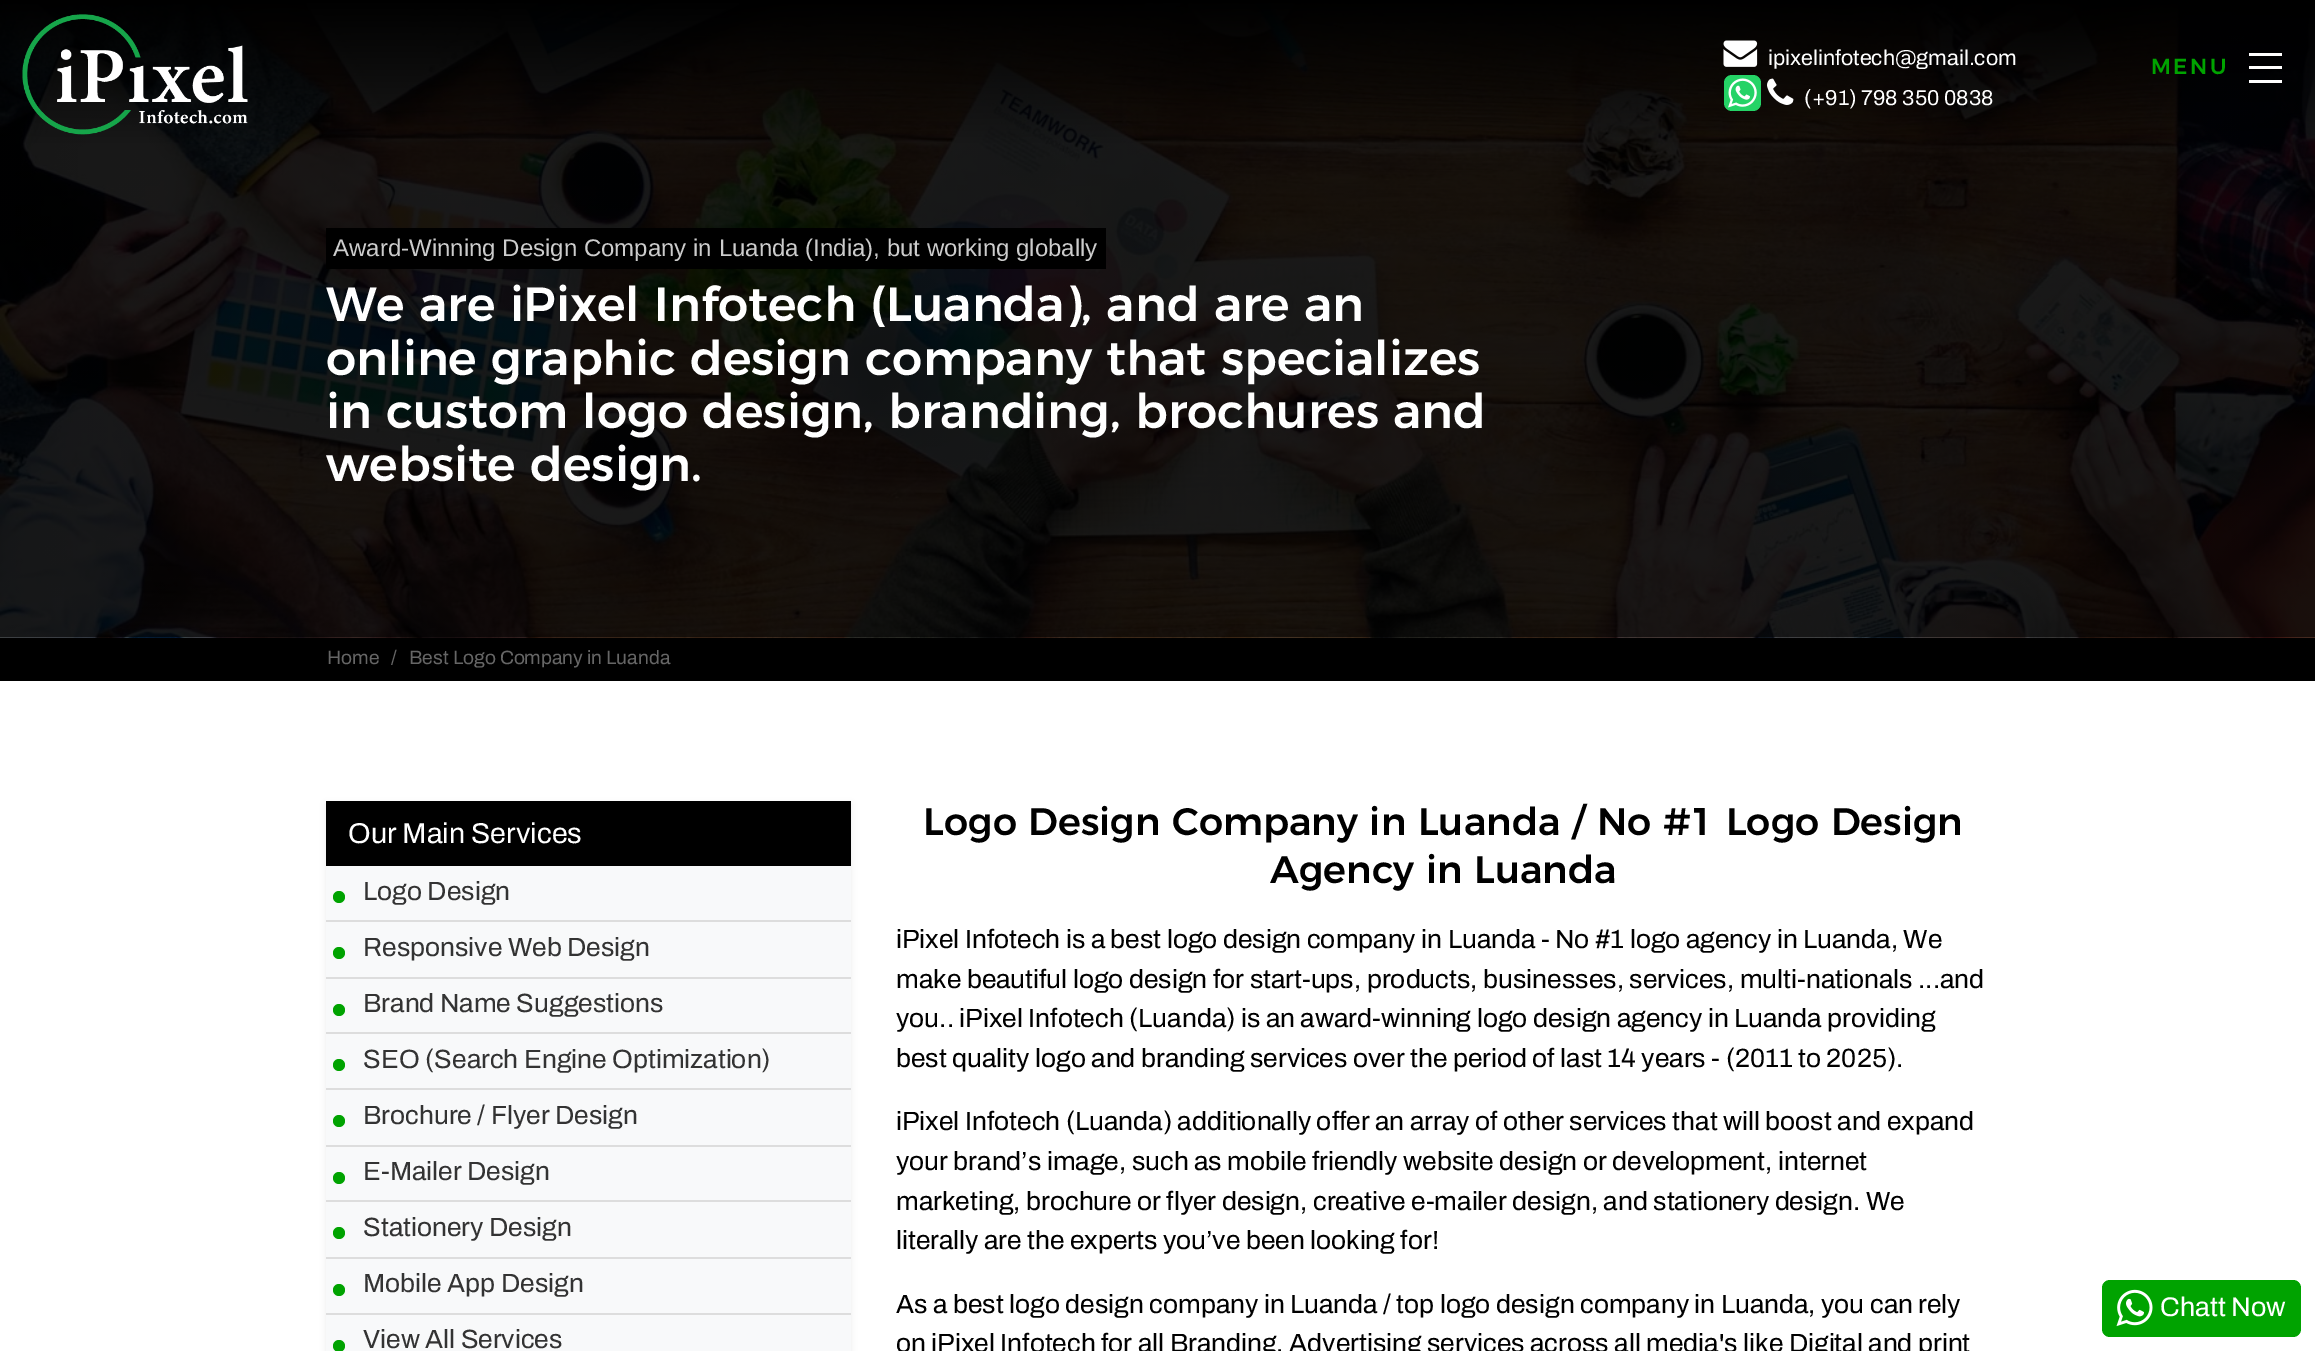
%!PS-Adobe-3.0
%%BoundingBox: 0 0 2315 1351
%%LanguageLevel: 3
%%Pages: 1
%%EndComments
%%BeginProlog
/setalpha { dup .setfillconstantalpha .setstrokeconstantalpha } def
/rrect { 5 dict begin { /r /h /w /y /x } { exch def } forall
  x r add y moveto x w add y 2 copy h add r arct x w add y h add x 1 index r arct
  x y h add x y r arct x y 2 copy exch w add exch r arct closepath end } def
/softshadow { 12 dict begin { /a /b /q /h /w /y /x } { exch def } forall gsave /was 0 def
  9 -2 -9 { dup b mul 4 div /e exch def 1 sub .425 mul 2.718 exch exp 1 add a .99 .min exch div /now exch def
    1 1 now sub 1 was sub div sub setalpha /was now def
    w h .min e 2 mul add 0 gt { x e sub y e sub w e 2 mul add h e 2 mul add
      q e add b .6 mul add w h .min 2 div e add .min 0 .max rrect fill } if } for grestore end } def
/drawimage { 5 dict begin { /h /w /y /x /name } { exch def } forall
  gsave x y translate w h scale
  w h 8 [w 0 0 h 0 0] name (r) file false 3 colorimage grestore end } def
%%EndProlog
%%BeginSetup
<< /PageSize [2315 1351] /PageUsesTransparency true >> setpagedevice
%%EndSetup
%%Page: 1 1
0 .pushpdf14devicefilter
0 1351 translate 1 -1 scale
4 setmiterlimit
0 setgray
0 0 2315 1351 rectfill
(images/5.raw) 0 0 2315 638 drawimage
(images/1.raw) 22 14 226 121 drawimage
(images/2.raw) 1723 40 35 27 drawimage
0.145 0.827 0.4 setrgbcolor
1724 75 37 36 8 rrect fill
(images/3.raw) 1728 78 29 30 drawimage
(images/4.raw) 1767 78 27 27 drawimage
1 setgray
2249 66 33 3 rectfill
2249 53 33 3 rectfill
2249 80 33 3 rectfill
0 setgray
326 228 780 41 rectfill
1 setgray
0 681 2315 670 rectfill
0 setgray
326 804 525 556 0 3 0.07 softshadow
0.973 0.976 0.98 setrgbcolor
326 866 525 485 rectfill
0 setgray
326 801 525 65 rectfill
0.867 setgray
326 920 525 2 rectfill
0 0.639 0 setrgbcolor
newpath 339 897 6 0 360 arc closepath fill
0.867 setgray
326 977 525 2 rectfill
0 0.639 0 setrgbcolor
newpath 339 953 6 0 360 arc closepath fill
0.867 setgray
326 1032 525 2 rectfill
0 0.639 0 setrgbcolor
newpath 339 1010 6 0 360 arc closepath fill
0.867 setgray
326 1088 525 2 rectfill
0 0.639 0 setrgbcolor
newpath 339 1065 6 0 360 arc closepath fill
0.867 setgray
326 1145 525 2 rectfill
0 0.639 0 setrgbcolor
newpath 339 1121 6 0 360 arc closepath fill
0.867 setgray
326 1200 525 2 rectfill
0 0.639 0 setrgbcolor
newpath 339 1178 6 0 360 arc closepath fill
0.867 setgray
326 1257 525 2 rectfill
0 0.639 0 setrgbcolor
newpath 339 1233 6 0 360 arc closepath fill
0.867 setgray
326 1313 525 2 rectfill
0 0.639 0 setrgbcolor
newpath 339 1290 6 0 360 arc closepath fill
newpath 339 1346 6 0 360 arc closepath fill
2102 1280 199 57 8 rrect fill
(images/6.raw) 2116 1289 37 38 drawimage
/Archivo-SemiBold [21.6 0 0 -21.6 0 0] selectfont
1 setgray
1768 65 moveto (ipixelinfotech@gmail.com) show
1804 105 moveto (\(+91\) 798 350 0838) show
/Montserrat-Medium [21.6 0 0 -21.6 0 0] selectfont
0 0.639 0 setrgbcolor
2151 74 moveto 2.5 0 (MENU) ashow
/LiberationSans-Regular [24 0 0 -24 0 0] selectfont
0.8 setgray
333 256 moveto (Award-Winning Design Company in Luanda \(India\), but working globally) show
/Montserrat-Medium [48 0 0 -48 0 0] selectfont
1 setgray
326 321 moveto (We are iPixel Infotech \(Luanda\), and are an) show
326 375 moveto (online graphic design company that specializes) show
326 428 moveto (in custom logo design, branding, brochures and) show
326 481 moveto (website design.) show
/Archivo-SemiBold [19.25 0 0 -19.25 0 0] selectfont
0.4 setgray
327 664 moveto (Home) show
391 664 moveto (/) show
409 664 moveto (Best Logo Company in Luanda) show
/Archivo-SemiBold [28.75 0 0 -28.75 0 0] selectfont
1 setgray
348 843 moveto (Our Main Services) show
/Archivo-SemiBold [26.4 0 0 -26.4 0 0] selectfont
0.2 setgray
363 900 moveto (Logo Design) show
363 956 moveto (Responsive Web Design) show
363 1012 moveto (Brand Name Suggestions) show
363 1068 moveto (SEO \(Search Engine Optimization\)) show
363 1124 moveto (Brochure / Flyer Design) show
363 1180 moveto (E-Mailer Design) show
363 1236 moveto (Stationery Design) show
363 1292 moveto (Mobile App Design) show
363 1348 moveto (View All Services) show
/Montserrat-Medium [38.4 0 0 -38.4 0 0] selectfont
0 setgray
923 835 moveto (Logo Design Company in Luanda / No #1 Logo Design) show
1270 883 moveto (Agency in Luanda) show
/Archivo-SemiBold [26.4 0 0 -26.4 0 0] selectfont
896 948 moveto (iPixel Infotech is a best logo design company in Luanda - No #1 logo agency in Luanda, We) show
896 988 moveto (make beautiful logo design for start-ups, products, businesses, services, multi-nationals ...and) show
896 1027 moveto (you.. iPixel Infotech \(Luanda\) is an award-winning logo design agency in Luanda providing) show
896 1067 moveto (best quality logo and branding services over the period of last 14 years - \(2011 to 2025\).) show
896 1130 moveto (iPixel Infotech \(Luanda\) additionally offer an array of other services that will boost and expand) show
896 1170 moveto (your brand’s image, such as mobile friendly website design or development, internet) show
896 1210 moveto (marketing, brochure or flyer design, creative e-mailer design, and stationery design. We) show
896 1249 moveto (literally are the experts you’ve been looking for!) show
896 1313 moveto (As a best logo design company in Luanda / top logo design company in Luanda, you can rely) show
896 1352 moveto (on iPixel Infotech for all Branding, Advertising services across all media's like Digital and print) show
/Archivo-SemiBold [27 0 0 -27 0 0] selectfont
1 setgray
2160 1316 moveto (Chatt Now) show
.poppdf14devicefilter showpage
%%EOF
